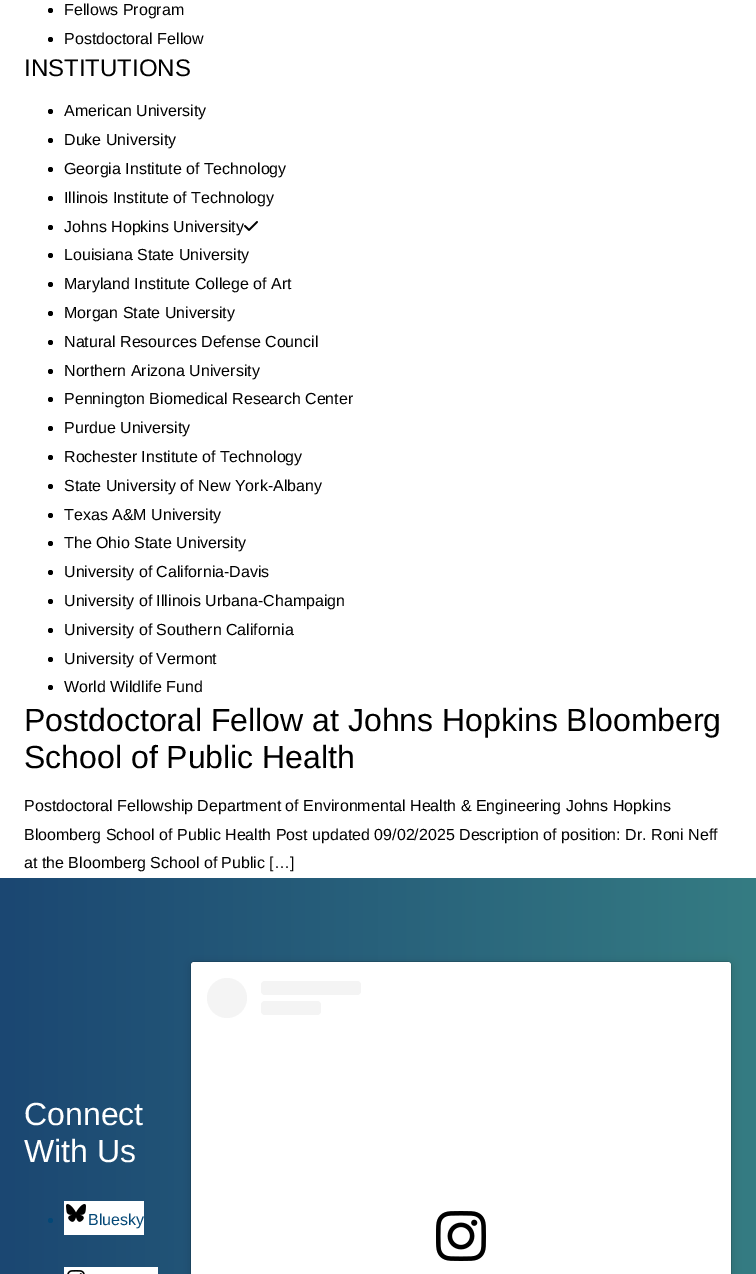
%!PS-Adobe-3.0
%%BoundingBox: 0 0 756 1274
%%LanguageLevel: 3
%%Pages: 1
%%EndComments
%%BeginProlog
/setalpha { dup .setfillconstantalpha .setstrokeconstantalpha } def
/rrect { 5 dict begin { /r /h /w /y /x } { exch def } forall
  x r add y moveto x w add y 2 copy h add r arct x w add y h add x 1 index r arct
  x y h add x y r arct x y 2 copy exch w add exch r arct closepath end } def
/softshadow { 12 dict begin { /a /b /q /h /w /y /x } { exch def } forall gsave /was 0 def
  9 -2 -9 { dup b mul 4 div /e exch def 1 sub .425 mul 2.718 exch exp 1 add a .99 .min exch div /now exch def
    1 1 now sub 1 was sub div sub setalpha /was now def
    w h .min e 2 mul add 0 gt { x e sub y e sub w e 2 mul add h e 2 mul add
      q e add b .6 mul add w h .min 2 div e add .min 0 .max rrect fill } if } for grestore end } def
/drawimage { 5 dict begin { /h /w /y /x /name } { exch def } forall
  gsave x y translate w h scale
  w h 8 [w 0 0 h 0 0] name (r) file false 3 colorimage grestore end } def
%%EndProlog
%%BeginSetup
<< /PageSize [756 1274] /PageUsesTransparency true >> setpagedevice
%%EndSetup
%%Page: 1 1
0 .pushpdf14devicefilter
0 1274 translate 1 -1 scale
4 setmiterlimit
1 setgray
0 0 756 1274 rectfill
0 setgray
newpath 50.5 10.5 2.5 0 360 arc closepath fill
newpath 50.5 39.5 2.5 0 360 arc closepath fill
newpath 50.5 111.5 2.5 0 360 arc closepath fill
newpath 50.5 140.5 2.5 0 360 arc closepath fill
newpath 50.5 169.5 2.5 0 360 arc closepath fill
newpath 50.5 198.5 2.5 0 360 arc closepath fill
newpath 50.5 227.5 2.5 0 360 arc closepath fill
(images/1.raw) 244 221 14 10 drawimage
newpath 50.5 255.5 2.5 0 360 arc closepath fill
newpath 50.5 284.5 2.5 0 360 arc closepath fill
newpath 50.5 313.5 2.5 0 360 arc closepath fill
newpath 50.5 342.5 2.5 0 360 arc closepath fill
newpath 50.5 371.5 2.5 0 360 arc closepath fill
newpath 50.5 399.5 2.5 0 360 arc closepath fill
newpath 50.5 428.5 2.5 0 360 arc closepath fill
newpath 50.5 457.5 2.5 0 360 arc closepath fill
newpath 50.5 486.5 2.5 0 360 arc closepath fill
newpath 50.5 515.5 2.5 0 360 arc closepath fill
newpath 50.5 543.5 2.5 0 360 arc closepath fill
newpath 50.5 572.5 2.5 0 360 arc closepath fill
newpath 50.5 601.5 2.5 0 360 arc closepath fill
newpath 50.5 630.5 2.5 0 360 arc closepath fill
newpath 50.5 659.5 2.5 0 360 arc closepath fill
newpath 50.5 687.5 2.5 0 360 arc closepath fill
gsave newpath 0 878 moveto 756 878 lineto 756 1274 lineto 0 1274 lineto closepath clip newpath
<< /ShadingType 2 /ColorSpace /DeviceRGB /Coords [0 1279 756 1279] /Extend [true true] /Function << /FunctionType 2 /Domain [0 1] /C0 [0.106 0.278 0.447] /C1 [0.208 0.486 0.514] /N 1 >> >> shfill grestore
1 setgray
64 1201 80 34 rectfill
0.012 0.278 0.463 setrgbcolor
newpath 50.5 1220.5 2.5 0 360 arc closepath fill
(images/2.raw) 66 1204 20 18 drawimage
1 setgray
64 1267 94 7 rectfill
(images/3.raw) 67 1270 18 4 drawimage
0 setgray
191 963 540 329 3 5 0.15 softshadow
191 962 540 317 3 0.5 0.5 softshadow
1 setgray
191 962 540 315 3 rrect fill
0.957 setgray
newpath 227 998 20 0 360 arc closepath fill
261 981 100 14 4 rrect fill
261 1001 60 14 4 rrect fill
(images/4.raw) 436 1211 50 50 drawimage
/LiberationSans-Regular [16 0 0 -16 0 0] selectfont
0 setgray
64 15 moveto (Fellows Program) show
64 44 moveto (Postdoctoral Fellow) show
/LiberationSans-Regular [24 0 0 -24 0 0] selectfont
24 76 moveto (INSTITUTIONS) show
/LiberationSans-Regular [16 0 0 -16 0 0] selectfont
64 116 moveto (American University) show
64 145 moveto (Duke University) show
64 174 moveto (Georgia Institute of Technology) show
64 203 moveto (Illinois Institute of Technology) show
64 232 moveto (Johns Hopkins University) show
64 260 moveto (Louisiana State University) show
64 289 moveto (Maryland Institute College of Art) show
64 318 moveto (Morgan State University) show
64 347 moveto (Natural Resources Defense Council) show
64 376 moveto (Northern Arizona University) show
64 404 moveto (Pennington Biomedical Research Center) show
64 433 moveto (Purdue University) show
64 462 moveto (Rochester Institute of Technology) show
64 491 moveto (State University of New York-Albany) show
64 520 moveto (Texas A&M University) show
64 548 moveto (The Ohio State University) show
64 577 moveto (University of California-Davis) show
64 606 moveto (University of Illinois Urbana-Champaign) show
64 635 moveto (University of Southern California) show
64 664 moveto (University of Vermont) show
64 692 moveto (World Wildlife Fund) show
/LiberationSans-Regular [32 0 0 -32 0 0] selectfont
24 731 moveto (Postdoctoral Fellow at Johns Hopkins Bloomberg) show
24 768 moveto (School of Public Health) show
/LiberationSans-Regular [16 0 0 -16 0 0] selectfont
24 811 moveto (Postdoctoral Fellowship Department of Environmental Health & Engineering Johns Hopkins) show
24 840 moveto (Bloomberg School of Public Health Post updated 09/02/2025 Description of position: Dr. Roni Neff) show
24 868 moveto (at the Bloomberg School of Public […]) show
/LiberationSans-Regular [32 0 0 -32 0 0] selectfont
1 setgray
24 1125 moveto (Connect) show
24 1162 moveto (With Us) show
/LiberationSans-Regular [16 0 0 -16 0 0] selectfont
0.012 0.278 0.463 setrgbcolor
88 1225 moveto (Bluesky) show
.poppdf14devicefilter showpage
%%EOF
